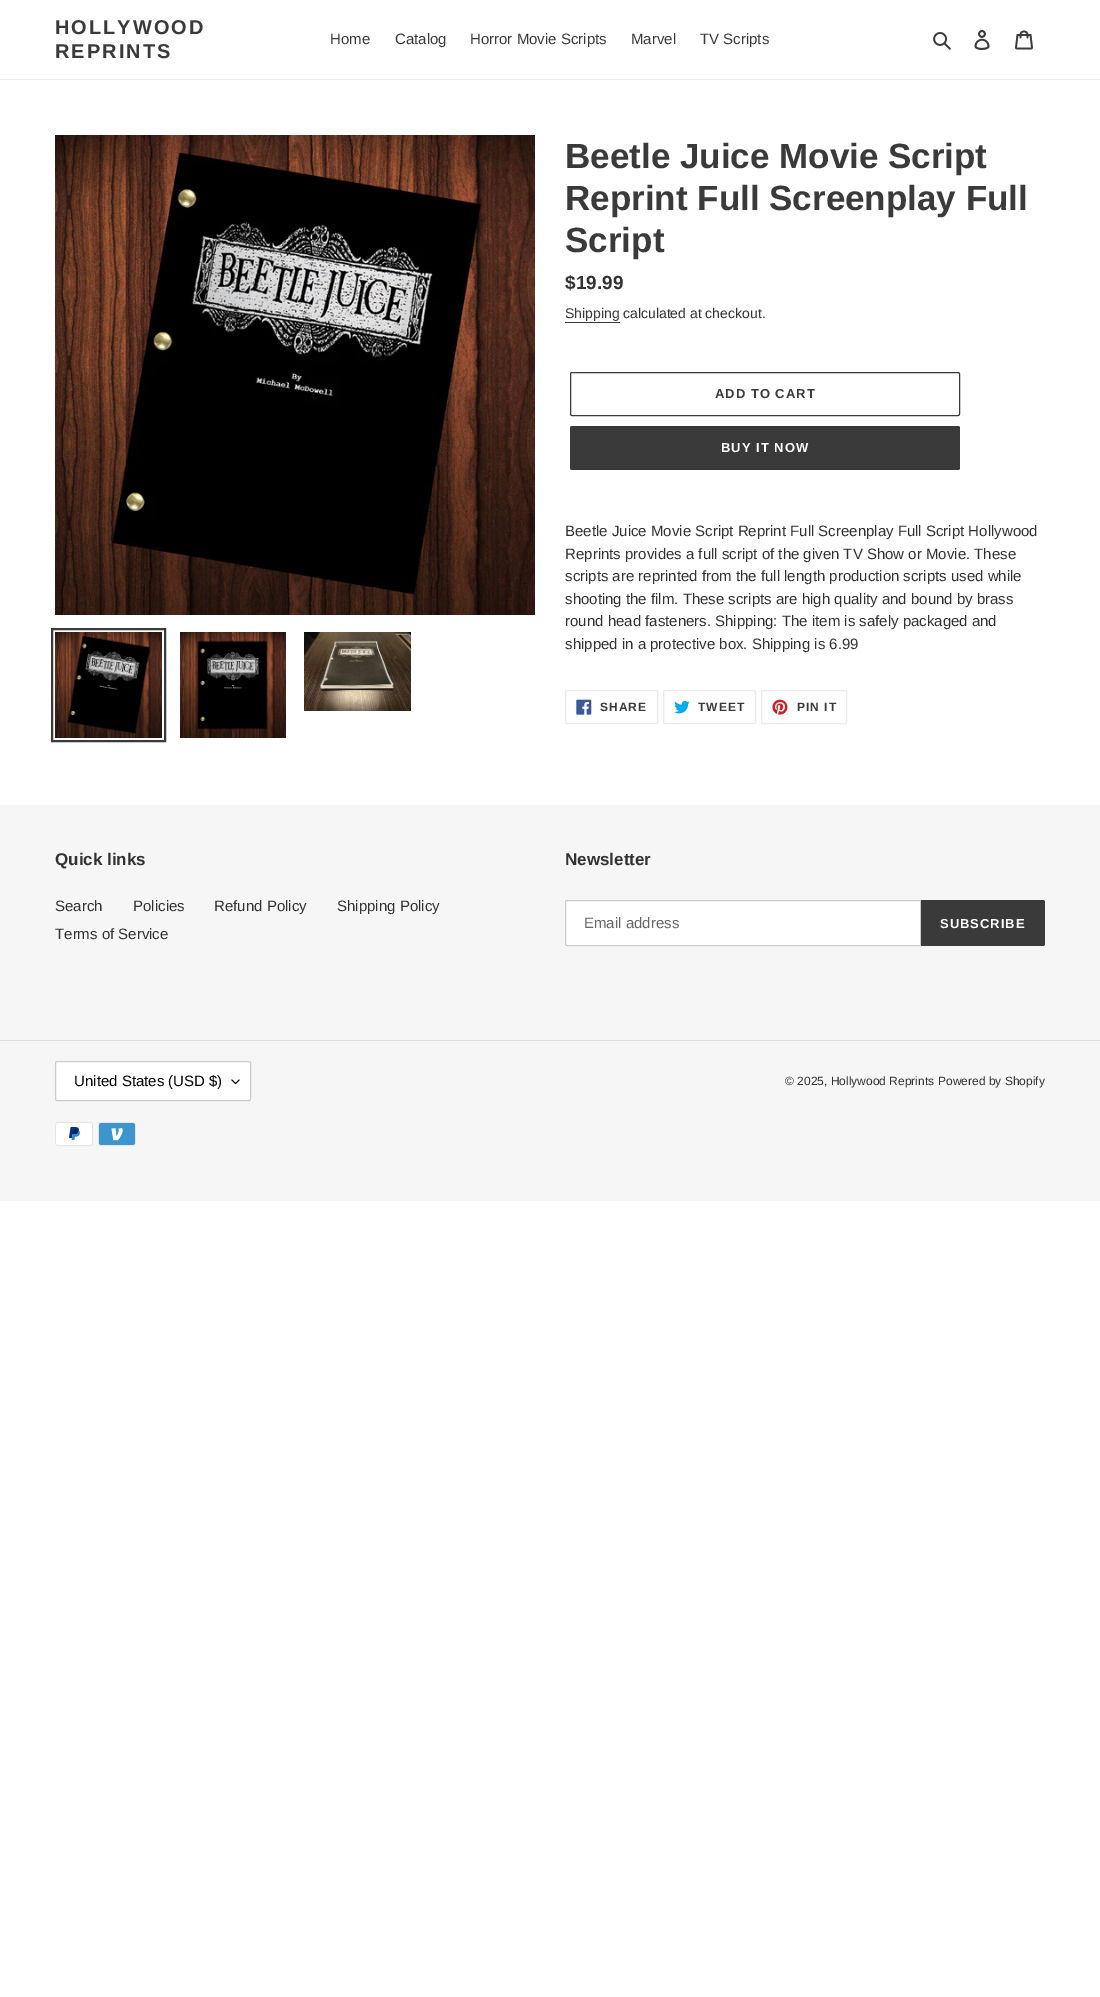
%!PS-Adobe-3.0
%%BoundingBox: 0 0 1100 1997
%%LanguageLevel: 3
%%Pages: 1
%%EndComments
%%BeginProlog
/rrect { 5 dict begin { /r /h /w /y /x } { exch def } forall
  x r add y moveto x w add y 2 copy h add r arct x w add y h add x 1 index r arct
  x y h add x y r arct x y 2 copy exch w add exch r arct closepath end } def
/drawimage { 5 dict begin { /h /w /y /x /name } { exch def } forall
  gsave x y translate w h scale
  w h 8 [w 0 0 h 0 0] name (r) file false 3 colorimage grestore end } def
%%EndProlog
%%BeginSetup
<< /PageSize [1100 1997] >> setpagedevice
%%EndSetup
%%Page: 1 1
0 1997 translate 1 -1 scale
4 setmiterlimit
1 setgray
0 0 1100 1997 rectfill
0.922 setgray
0 79 1100 1 rectfill
(images/1.raw) 933 32 18 18 drawimage
(images/2.raw) 974 30 16 20 drawimage
(images/3.raw) 1015 30 18 20 drawimage
(images/4.raw) 55 135 480 480 drawimage
0.227 setgray
2 setlinewidth
52 629 113 112 rectstroke
(images/5.raw) 55 632 107 106 drawimage
(images/6.raw) 180 632 106 106 drawimage
(images/7.raw) 304 632 107 79 drawimage
565 322 55 1 rectfill
1 setlinewidth
570.5 372.5 389 43 1.5 rrect stroke
570 426 390 44 2 rrect fill
0.922 setgray
565.5 690.5 92 33 1.5 rrect stroke
(images/8.raw) 576 699 16 16 drawimage
663.5 690.5 92 33 1.5 rrect stroke
(images/9.raw) 674 700 16 14 drawimage
761.5 690.5 85 33 1.5 rrect stroke
(images/10.raw) 772 699 16 16 drawimage
0.965 setgray
0 805 1100 396 rectfill
1 setgray
newpath 567 900.5 moveto 920.5 900.5 lineto 920.5 945.5 lineto 567 945.5 lineto 566 945.5 565.5 945 565.5 944 curveto 565.5 902 lineto 565.5 901 566 900.5 567 900.5 curveto closepath gsave fill grestore
0.8 setgray
stroke
0.227 setgray
newpath 921 900 moveto 1043 900 lineto 1044 900 1045 901 1045 902 curveto 1045 944 lineto 1045 945 1044 946 1043 946 curveto 921 946 lineto closepath fill
0.867 setgray
0 1040 1100 1 rectfill
1 setgray
55 1061 196 40 2 rrect fill
(images/11.raw) 231 1079 9 6 drawimage
0.8 setgray
55.5 1061.5 195 39 1.5 rrect stroke
(images/12.raw) 55 1122 38 24 drawimage
(images/13.raw) 98 1122 38 24 drawimage
/LiberationSans-Bold [20 0 0 -20 0 0] selectfont
0.227 setgray
55 34 moveto 2 0 (HOLLYWOOD) ashow
55 58 moveto 2 0 (REPRINTS) ashow
/LiberationSans-Regular [15 0 0 -15 0 0] selectfont
330 44 moveto (Home) show
395 44 moveto (Catalog) show
470 44 moveto (Horror Movie Scripts) show
631 44 moveto (Marvel) show
700 44 moveto (TV Scripts) show
/LiberationSans-Bold [35 0 0 -35 0 0] selectfont
565 168 moveto (Beetle Juice Movie Script) show
565 210 moveto (Reprint Full Screenplay Full) show
565 252 moveto (Script) show
/LiberationSans-Bold [19 0 0 -19 0 0] selectfont
0.2 0.196 0.196 setrgbcolor
565 289 moveto ($19.99) show
/LiberationSans-Regular [14 0 0 -14 0 0] selectfont
0.227 setgray
565 318 moveto (Shipping) show
0.2 0.196 0.196 setrgbcolor
623 318 moveto (calculated at checkout.) show
/LiberationSans-Bold [13 0 0 -13 0 0] selectfont
0.227 setgray
715 398 moveto 1 0 (ADD TO CART) ashow
1 setgray
721 452 moveto 1 0 (BUY IT NOW) ashow
/LiberationSans-Regular [15 0 0 -15 0 0] selectfont
0.2 0.196 0.196 setrgbcolor
565 536 moveto (Beetle Juice Movie Script Reprint Full Screenplay Full Script Hollywood) show
565 559 moveto (Reprints provides a full script of the given TV Show or Movie. These) show
565 581 moveto (scripts are reprinted from the full length production scripts used while) show
565 604 moveto (shooting the film. These scripts are high quality and bound by brass) show
565 626 moveto (round head fasteners. Shipping: The item is safely packaged and) show
565 649 moveto (shipped in a protective box. Shipping is 6.99) show
/LiberationSans-Bold [12 0 0 -12 0 0] selectfont
0.227 setgray
600 711 moveto 1 0 (SHARE) ashow
698 711 moveto 1 0 (TWEET) ashow
797 711 moveto 1 0 (PIN IT) ashow
/LiberationSans-Bold [17 0 0 -17 0 0] selectfont
0.2 0.196 0.196 setrgbcolor
55 865 moveto (Quick links) show
/LiberationSans-Regular [15 0 0 -15 0 0] selectfont
55 911 moveto (Search) show
133 911 moveto (Policies) show
214 911 moveto (Refund Policy) show
337 911 moveto (Shipping Policy) show
55 939 moveto (Terms of Service) show
/LiberationSans-Bold [17 0 0 -17 0 0] selectfont
565 865 moveto (Newsletter) show
/LiberationSans-Regular [15 0 0 -15 0 0] selectfont
0.4 setgray
584 928 moveto (Email address) show
/LiberationSans-Bold [13 0 0 -13 0 0] selectfont
1 setgray
940 928 moveto 1 0 (SUBSCRIBE) ashow
/LiberationSans-Regular [15 0 0 -15 0 0] selectfont
0 setgray
74 1086 moveto (United States \(USD $\)) show
/LiberationSans-Regular [12 0 0 -12 0 0] selectfont
0.2 0.196 0.196 setrgbcolor
785 1085 moveto (© 2025, Hollywood Reprints) show
938 1085 moveto (Powered by Shopify) show
showpage
%%EOF
